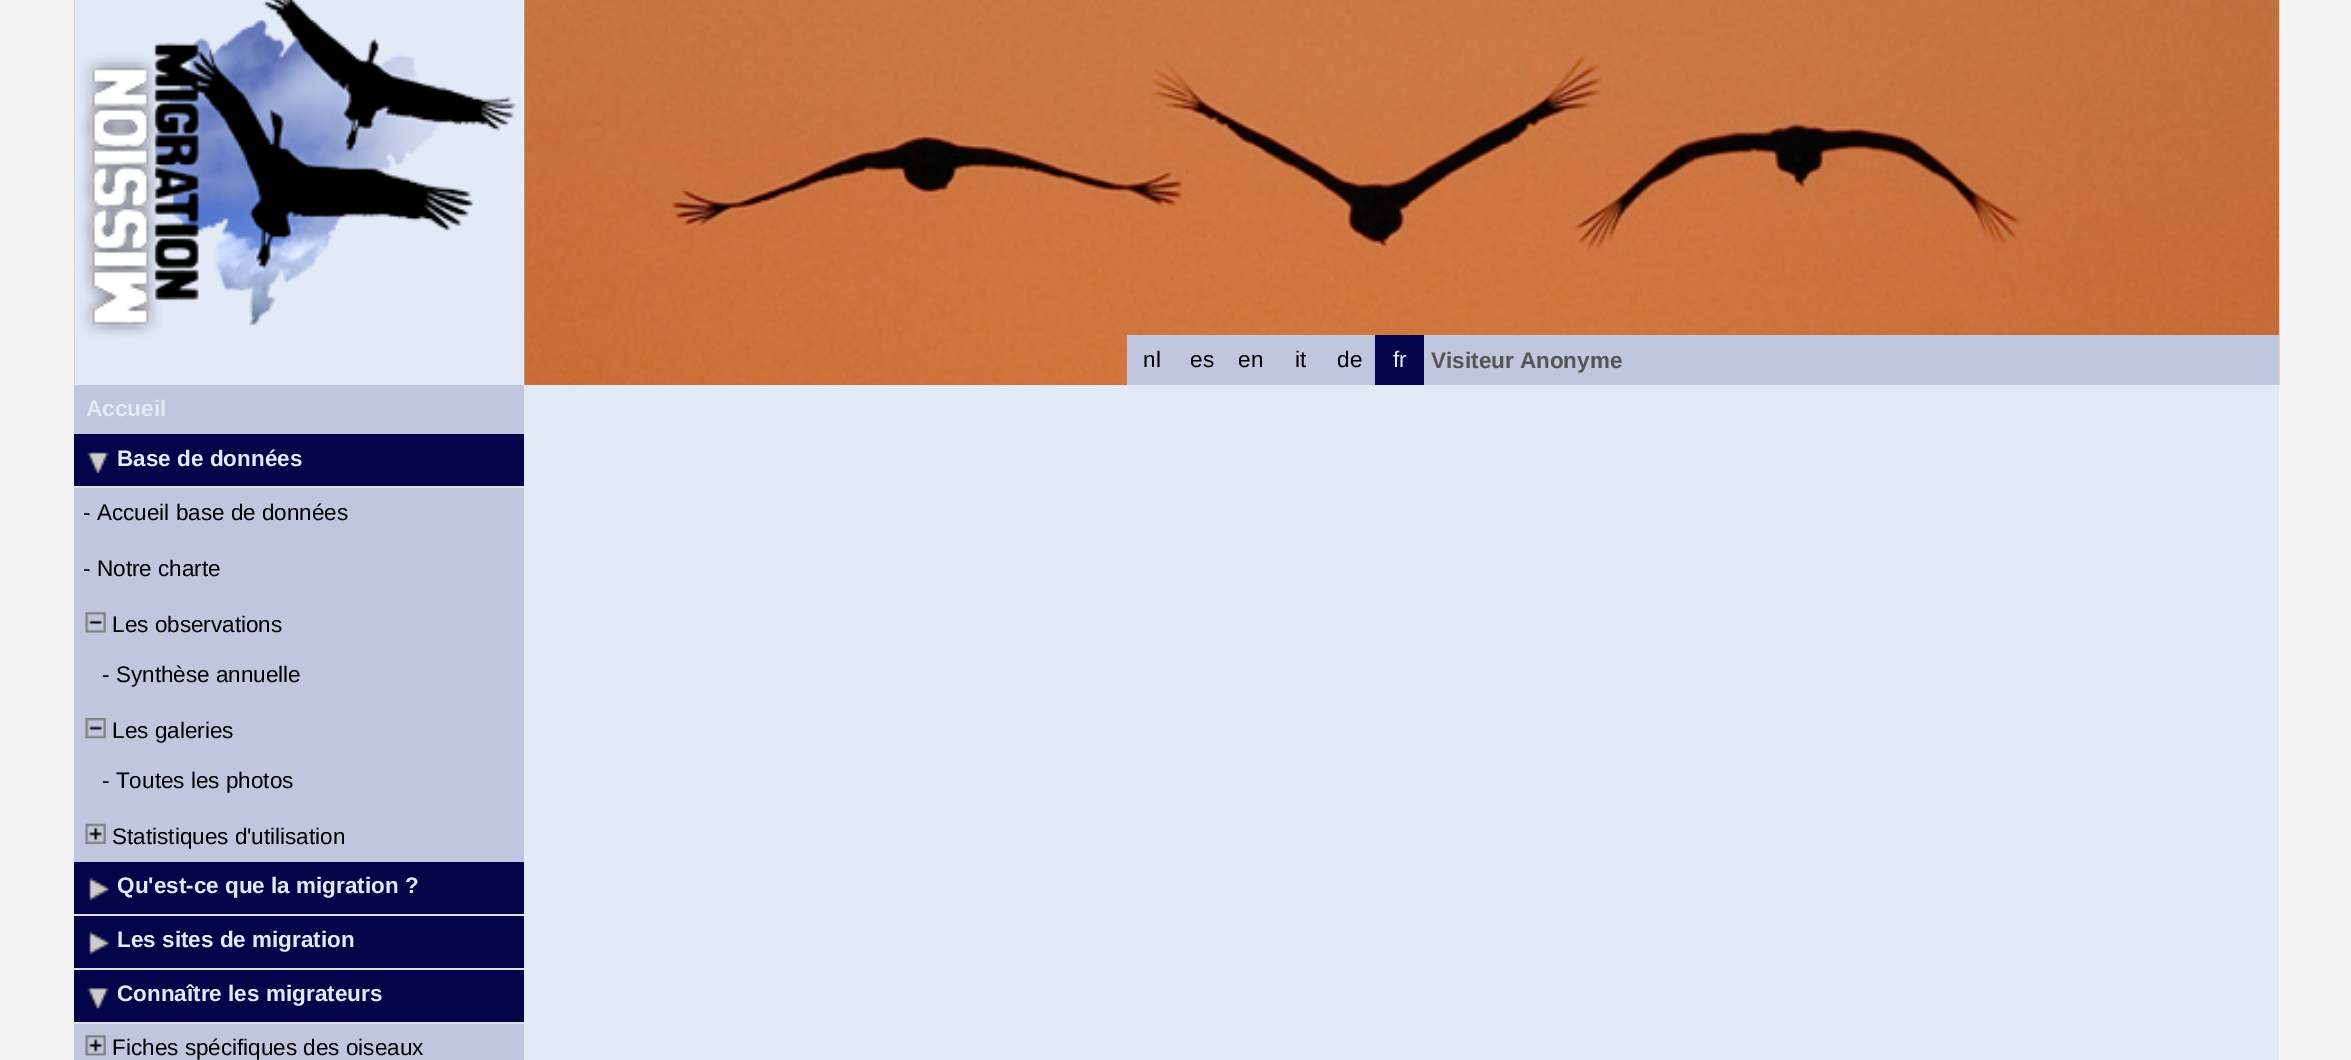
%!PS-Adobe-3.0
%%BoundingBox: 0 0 2351 1060
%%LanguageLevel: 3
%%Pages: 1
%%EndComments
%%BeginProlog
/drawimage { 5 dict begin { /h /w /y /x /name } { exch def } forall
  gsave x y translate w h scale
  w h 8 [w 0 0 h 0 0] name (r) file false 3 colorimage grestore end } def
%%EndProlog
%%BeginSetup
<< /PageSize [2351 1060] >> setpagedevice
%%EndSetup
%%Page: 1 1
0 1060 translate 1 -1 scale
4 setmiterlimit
0.957 setgray
0 0 2351 1060 rectfill
(images/1.raw) 74 0 2206 385 drawimage
(images/2.raw) 74 0 451 385 drawimage
0.753 0.776 0.867 setrgbcolor
1127 335 248 50 rectfill
0.016 0.016 0.294 setrgbcolor
1375 335 49 50 rectfill
0.753 0.776 0.867 setrgbcolor
1424 335 855 50 rectfill
74 385 450 49 rectfill
0.016 0.016 0.294 setrgbcolor
74 434 450 52 rectfill
0.878 setgray
74 486 450 2 rectfill
(images/3.raw) 87 452 22 21 drawimage
0.753 0.776 0.867 setrgbcolor
74 488 450 374 rectfill
(images/4.raw) 85 612 21 21 drawimage
(images/5.raw) 85 718 21 21 drawimage
(images/6.raw) 85 823 21 21 drawimage
0.016 0.016 0.294 setrgbcolor
74 862 450 52 rectfill
0.878 setgray
74 914 450 2 rectfill
(images/7.raw) 89 877 20 24 drawimage
0.016 0.016 0.294 setrgbcolor
74 916 450 52 rectfill
0.878 setgray
74 968 450 2 rectfill
(images/7.raw) 89 931 20 24 drawimage
0.016 0.016 0.294 setrgbcolor
74 970 450 52 rectfill
0.878 setgray
74 1022 450 2 rectfill
(images/8.raw) 87 988 22 21 drawimage
0.753 0.776 0.867 setrgbcolor
74 1024 450 36 rectfill
(images/9.raw) 85 1035 21 21 drawimage
0.886 0.914 0.969 setrgbcolor
524 385 1755 675 rectfill
/LiberationSans-Regular [22.5 0 0 -22.5 0 0] selectfont
0 setgray
1143 367 moveto (nl) show
1190 367 moveto (es) show
1238 367 moveto (en) show
1295 367 moveto (it) show
1337 367 moveto (de) show
0.886 0.914 0.969 setrgbcolor
1393 367 moveto (fr) show
/LiberationSans-Bold [22.5 0 0 -22.5 0 0] selectfont
0.333 setgray
1431 368 moveto (Visiteur Anonyme) show
0.886 0.914 0.969 setrgbcolor
86 416 moveto (Accueil) show
117 466 moveto (Base de données) show
/LiberationSans-Regular [22.5 0 0 -22.5 0 0] selectfont
0 setgray
83 520 moveto (- Accueil base de données) show
83 576 moveto (- Notre charte) show
112 632 moveto (Les observations) show
102 682 moveto (- Synthèse annuelle) show
112 738 moveto (Les galeries) show
102 788 moveto (- Toutes les photos) show
112 844 moveto (Statistiques d'utilisation) show
/LiberationSans-Bold [22.5 0 0 -22.5 0 0] selectfont
0.886 0.914 0.969 setrgbcolor
117 893 moveto (Qu'est-ce que la migration ?) show
117 947 moveto (Les sites de migration) show
117 1001 moveto (Connaître les migrateurs) show
/LiberationSans-Regular [22.5 0 0 -22.5 0 0] selectfont
0 setgray
112 1055 moveto (Fiches spécifiques des oiseaux) show
showpage
%%EOF
